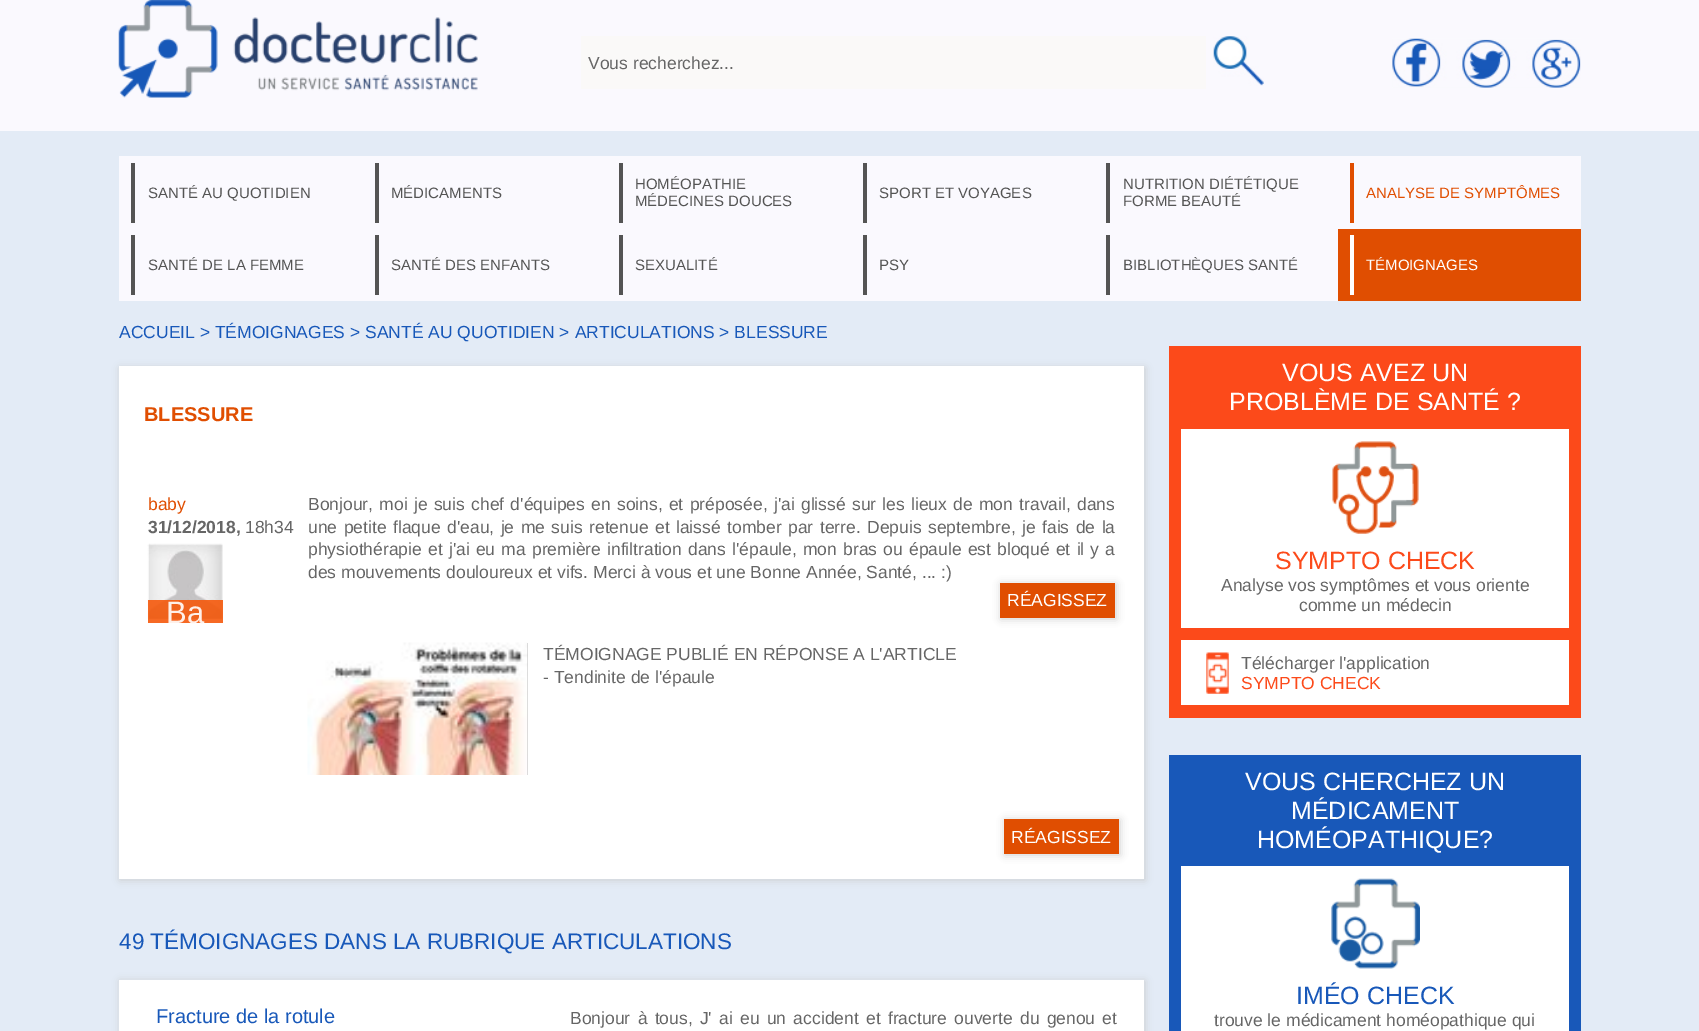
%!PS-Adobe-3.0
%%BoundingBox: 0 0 1699 1031
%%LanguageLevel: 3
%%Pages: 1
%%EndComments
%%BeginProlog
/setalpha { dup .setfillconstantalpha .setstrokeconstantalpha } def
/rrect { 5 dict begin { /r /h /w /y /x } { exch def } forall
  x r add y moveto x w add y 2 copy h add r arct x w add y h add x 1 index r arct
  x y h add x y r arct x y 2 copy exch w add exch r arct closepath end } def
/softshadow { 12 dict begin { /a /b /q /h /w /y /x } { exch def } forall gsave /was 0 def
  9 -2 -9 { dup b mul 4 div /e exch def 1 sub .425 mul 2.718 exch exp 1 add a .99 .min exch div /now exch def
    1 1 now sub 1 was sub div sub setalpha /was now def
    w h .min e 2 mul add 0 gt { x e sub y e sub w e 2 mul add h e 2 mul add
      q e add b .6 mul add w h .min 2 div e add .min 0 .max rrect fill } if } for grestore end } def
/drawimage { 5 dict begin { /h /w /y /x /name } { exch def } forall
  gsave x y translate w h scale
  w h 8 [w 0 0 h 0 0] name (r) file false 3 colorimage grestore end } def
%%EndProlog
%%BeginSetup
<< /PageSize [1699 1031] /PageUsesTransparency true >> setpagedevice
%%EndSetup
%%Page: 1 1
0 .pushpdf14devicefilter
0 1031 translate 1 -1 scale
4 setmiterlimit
0.89 0.922 0.965 setrgbcolor
0 0 1699 1031 rectfill
0.98 0.976 0.996 setrgbcolor
0 0 1699 131 rectfill
(images/1.raw) 118 0 360 98 drawimage
0.98 0.976 0.973 setrgbcolor
581 36 625 53 rectfill
(images/2.raw) 1213 36 51 50 drawimage
(images/3.raw) 1392 38 189 50 drawimage
0.98 0.976 0.996 setrgbcolor
119 156 1462 73 rectfill
0.329 setgray
131 163 4 60 rectfill
375 163 4 60 rectfill
619 163 4 60 rectfill
863 163 4 60 rectfill
1106 163 4 60 rectfill
0.878 0.306 0.004 setrgbcolor
1350 163 4 60 rectfill
0.98 0.976 0.996 setrgbcolor
119 229 1219 72 rectfill
0.329 setgray
131 235 4 60 rectfill
375 235 4 60 rectfill
619 235 4 60 rectfill
863 235 4 60 rectfill
1106 235 4 60 rectfill
0.878 0.306 0.004 setrgbcolor
1338 229 243 72 rectfill
1 setgray
1350 235 4 60 rectfill
0.8 setgray
120 368 1025 512 0 4 1 softshadow
1 setgray
119 366 1025 513 rectfill
(images/4.raw) 147 543 76 76 drawimage
0.9 setalpha
0.961 0.349 0.047 setrgbcolor
148 600 75 23 rectfill
1 setalpha
0.8 setgray
1001 584 115 35 0 4 1 softshadow
0.878 0.306 0.004 setrgbcolor
1000 583 115 35 rectfill
0.733 setgray
527 643 1 132 rectfill
(images/5.raw) 307 642 221 133 drawimage
0.8 setgray
1005 820 115 35 0 4 1 softshadow
0.878 0.306 0.004 setrgbcolor
1004 819 115 35 rectfill
0.8 setgray
120 981 1025 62 0 4 1 softshadow
1 setgray
119 980 1025 51 rectfill
0.988 0.29 0.102 setrgbcolor
1169 346 412 372 rectfill
1 setgray
1181 429 388 199 rectfill
(images/6.raw) 1332 441 87 93 drawimage
1181 640 388 65 rectfill
(images/7.raw) 1206 652 23 42 drawimage
0.094 0.345 0.725 setrgbcolor
1169 755 412 276 rectfill
1 setgray
1181 866 388 165 rectfill
(images/8.raw) 1331 878 89 91 drawimage
/LiberationSans-Regular [17.5 0 0 -17.5 0 0] selectfont
0.4 setgray
588 69 moveto (Vous recherchez...) show
/LiberationSans-Regular [15 0 0 -15 0 0] selectfont
0.329 setgray
148 198 moveto (SANTÉ AU QUOTIDIEN) show
391 198 moveto (MÉDICAMENTS) show
635 189 moveto (HOMÉOPATHIE) show
635 206 moveto (MÉDECINES DOUCES) show
879 198 moveto (SPORT ET VOYAGES) show
1123 189 moveto (NUTRITION DIÉTÉTIQUE) show
1123 206 moveto (FORME BEAUTÉ) show
0.878 0.306 0.004 setrgbcolor
1366 198 moveto (ANALYSE DE SYMPTÔMES) show
0.329 setgray
148 270 moveto (SANTÉ DE LA FEMME) show
391 270 moveto (SANTÉ DES ENFANTS) show
635 270 moveto (SEXUALITÉ) show
879 270 moveto (PSY) show
1123 270 moveto (BIBLIOTHÈQUES SANTÉ) show
1 setgray
1366 270 moveto (TÉMOIGNAGES) show
/LiberationSans-Regular [17.5 0 0 -17.5 0 0] selectfont
0.094 0.345 0.725 setrgbcolor
119 338 moveto (ACCUEIL > TÉMOIGNAGES > SANTÉ AU QUOTIDIEN > ARTICULATIONS > BLESSURE) show
/LiberationSans-Bold [20 0 0 -20 0 0] selectfont
0.878 0.306 0.004 setrgbcolor
144 421 moveto (BLESSURE) show
/LiberationSans-Regular [17.5 0 0 -17.5 0 0] selectfont
148 510 moveto (baby) show
/LiberationSans-Bold [17.5 0 0 -17.5 0 0] selectfont
0.4 setgray
148 533 moveto (31/12/2018,) show
/LiberationSans-Regular [17.5 0 0 -17.5 0 0] selectfont
245 533 moveto (18h34) show
/LiberationSans-Regular [31 0 0 -31 0 0] selectfont
0.996 0.941 0.914 setrgbcolor
166 623 moveto (Ba) show
/LiberationSans-Regular [17.5 0 0 -17.5 0 0] selectfont
0.4 setgray
308 510 moveto 1.4 0 32 (Bonjour, moi je suis chef d'équipes en soins, et préposée, j'ai glissé sur les lieux de mon travail, dans) widthshow
308 533 moveto 1.6 0 32 (une petite flaque d'eau, je me suis retenue et laissé tomber par terre. Depuis septembre, je fais de la) widthshow
308 555 moveto 1.3 0 32 (physiothérapie et j'ai eu ma première infiltration dans l'épaule, mon bras ou épaule est bloqué et il y a) widthshow
308 578 moveto (des mouvements douloureux et vifs. Merci à vous et une Bonne Année, Santé, ... :\)) show
1 setgray
1007 606 moveto (RÉAGISSEZ) show
0.4 setgray
543 660 moveto (TÉMOIGNAGE PUBLIÉ EN RÉPONSE A L'ARTICLE) show
543 683 moveto (- Tendinite de l'épaule) show
1 setgray
1011 843 moveto (RÉAGISSEZ) show
/LiberationSans-Regular [22.5 0 0 -22.5 0 0] selectfont
0.094 0.345 0.725 setrgbcolor
119 949 moveto (49 TÉMOIGNAGES DANS LA RUBRIQUE ARTICULATIONS) show
/LiberationSans-Regular [20 0 0 -20 0 0] selectfont
156 1023 moveto (Fracture de la rotule) show
/LiberationSans-Regular [17.5 0 0 -17.5 0 0] selectfont
0.4 setgray
570 1024 moveto 2.4 0 32 (Bonjour à tous, J' ai eu un accident et fracture ouverte du genou et) widthshow
/LiberationSans-Regular [25 0 0 -25 0 0] selectfont
1 setgray
1282 381 moveto (VOUS AVEZ UN) show
1229 410 moveto (PROBLÈME DE SANTÉ ?) show
0.988 0.29 0.102 setrgbcolor
1275 569 moveto (SYMPTO CHECK) show
/LiberationSans-Regular [17.5 0 0 -17.5 0 0] selectfont
0.4 setgray
1221 591 moveto (Analyse vos symptômes et vous oriente) show
1299 611 moveto (comme un médecin) show
1241 669 moveto (Télécharger l'application) show
0.988 0.29 0.102 setrgbcolor
1241 689 moveto (SYMPTO CHECK) show
/LiberationSans-Regular [25 0 0 -25 0 0] selectfont
1 setgray
1245 790 moveto (VOUS CHERCHEZ UN) show
1291 819 moveto (MÉDICAMENT) show
1257 848 moveto (HOMÉOPATHIQUE?) show
0.094 0.345 0.725 setrgbcolor
1296 1004 moveto (IMÉO CHECK) show
/LiberationSans-Regular [17.5 0 0 -17.5 0 0] selectfont
0.4 setgray
1214 1026 moveto (trouve le médicament homéopathique qui) show
.poppdf14devicefilter showpage
%%EOF
